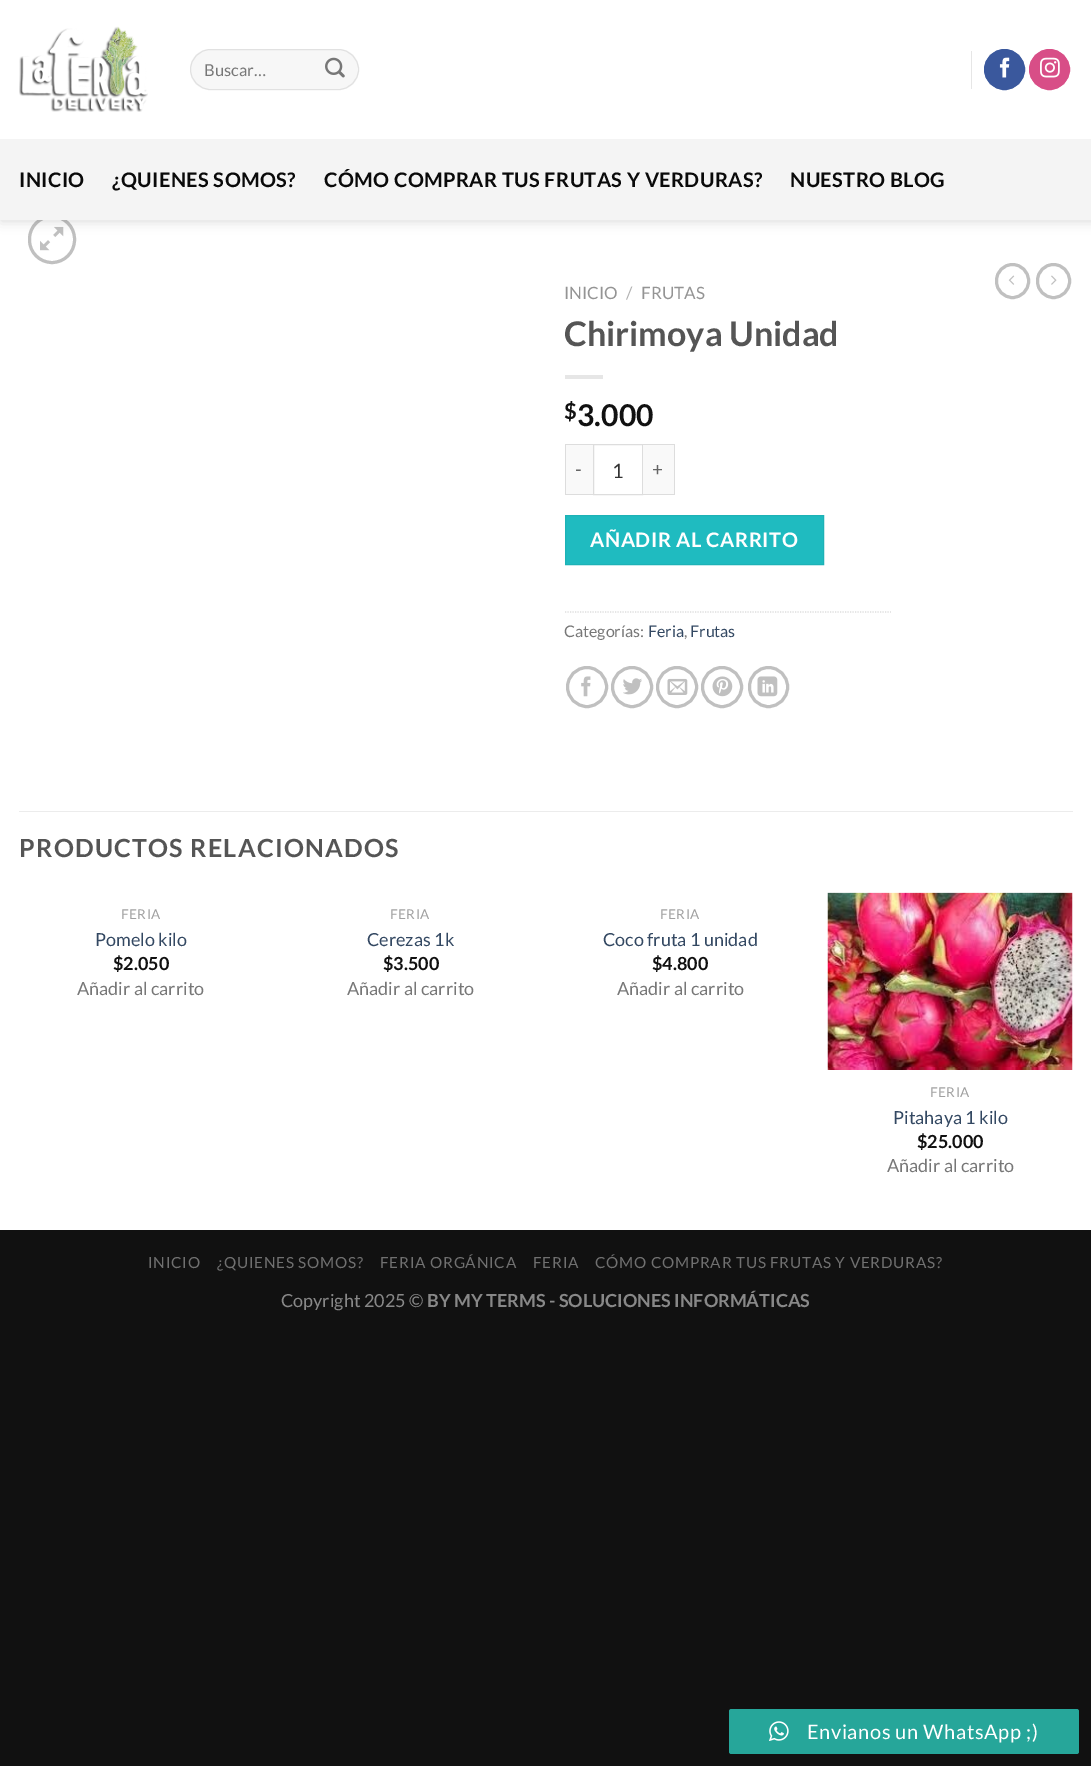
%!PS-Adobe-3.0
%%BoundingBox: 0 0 1091 1766
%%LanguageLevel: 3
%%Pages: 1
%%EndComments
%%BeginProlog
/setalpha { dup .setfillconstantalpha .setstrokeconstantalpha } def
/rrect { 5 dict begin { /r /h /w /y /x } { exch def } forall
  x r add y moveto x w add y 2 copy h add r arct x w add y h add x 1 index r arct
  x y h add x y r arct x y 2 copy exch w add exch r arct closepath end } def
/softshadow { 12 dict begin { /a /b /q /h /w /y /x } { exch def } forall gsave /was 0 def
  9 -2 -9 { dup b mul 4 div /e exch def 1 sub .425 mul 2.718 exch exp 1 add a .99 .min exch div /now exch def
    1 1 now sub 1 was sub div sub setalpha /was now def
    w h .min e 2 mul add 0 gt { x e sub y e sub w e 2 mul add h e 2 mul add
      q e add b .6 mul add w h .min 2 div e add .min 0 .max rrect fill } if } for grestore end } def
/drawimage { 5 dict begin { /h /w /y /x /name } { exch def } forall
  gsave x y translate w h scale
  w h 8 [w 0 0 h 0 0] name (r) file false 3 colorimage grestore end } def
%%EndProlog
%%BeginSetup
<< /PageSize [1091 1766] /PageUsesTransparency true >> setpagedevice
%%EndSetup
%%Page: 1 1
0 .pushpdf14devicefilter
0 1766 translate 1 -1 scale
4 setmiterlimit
0.067 setgray
0 0 1091 1766 rectfill
1 setgray
0 220 1091 1010 rectfill
0.753 setgray
3 setlinewidth
29.5 216.5 45 46 22.5 rrect stroke
(images/5.raw) 40 226 24 25 drawimage
0 setgray
1 1 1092 220 0 6 0.15 softshadow
1 setgray
0 0 1091 139 rectfill
(images/1.raw) 19 26 129 86 drawimage
0.969 setgray
190 49 169 41 20.5 rrect fill
0.09 setalpha
0 setgray
1 setlinewidth
190.5 49.5 168 40 20 rrect stroke
1 setalpha
(images/2.raw) 325 57 20 21 drawimage
0.902 setgray
971 51 1 38 rectfill
0.227 0.345 0.616 setrgbcolor
newpath 1004.5 69.5 20 0 360 arc closepath gsave fill grestore
stroke
(images/3.raw) 999 57 11 21 drawimage
0.847 0.306 0.529 setrgbcolor
newpath 1049.5 69.5 20 0 360 arc closepath gsave fill grestore
stroke
(images/4.raw) 1040 57 20 21 drawimage
0.957 setgray
0 139 1091 81 rectfill
0.753 setgray
3 setlinewidth
996.5 264.5 32 33 16 rrect stroke
(images/6.raw) 1008 275 7 10 drawimage
1037.5 264.5 32 33 16 rrect stroke
(images/7.raw) 1051 275 6 10 drawimage
0.902 setgray
565 375 38 4 rectfill
0.976 setgray
566 445 27 49 rectfill
0.867 setgray
565 444 28 1 rectfill
565 494 28 1 rectfill
565 444 1 51 rectfill
1 setlinewidth
593.5 444.5 49 50 rectstroke
0.976 setgray
643 445 31 49 rectfill
0.867 setgray
643 444 32 1 rectfill
674 444 1 51 rectfill
643 494 32 1 rectfill
0.122 0.733 0.753 setrgbcolor
newpath 565.5 515.5 moveto 823.5 515.5 lineto 823.5 564.5 lineto 565.5 564.5 lineto closepath gsave fill grestore
0.114 0.698 0.714 setrgbcolor
stroke
0.867 setgray
1.2 setlinewidth
[1.25 1.25] 0 setdash
newpath 565 612 moveto 891 612 lineto stroke
0.753 setgray
3 setlinewidth
[] 0 setdash
newpath 587 687 19.5 0 360 arc closepath stroke
(images/8.raw) 581 676 10 21 drawimage
newpath 632 687 19.5 0 360 arc closepath stroke
(images/9.raw) 623 678 19 17 drawimage
newpath 677 687 19.5 0 360 arc closepath stroke
(images/10.raw) 667 678 21 17 drawimage
newpath 722 687 19.5 0 360 arc closepath stroke
(images/11.raw) 712 676 21 21 drawimage
749.5 667.5 38 39 19 rrect stroke
(images/12.raw) 757 676 21 21 drawimage
0.925 setgray
19 811 1054 1 rectfill
(images/13.raw) 827 892 246 178 drawimage
0.149 0.651 0.604 setrgbcolor
729 1709 350 45 2.5 rrect fill
(images/14.raw) 769 1721 20 20 drawimage
/Lato-Regular [16.5 0 0 -16.5 0 0] selectfont
0.467 setgray
204 76 moveto (Buscar…) show
/Lato-Bold [20 0 0 -20 0 0] selectfont
0.039 setgray
19 187 moveto 0.4 0 (INICIO) ashow
112 187 moveto 0.4 0 (¿QUIENES SOMOS?) ashow
324 187 moveto 0.4 0 (CÓMO COMPRAR TUS FRUTAS Y VERDURAS?) ashow
790 187 moveto 0.4 0 (NUESTRO BLOG) ashow
/Lato-Regular [17 0 0 -17 0 0] selectfont
0.58 setgray
564 299 moveto (INICIO) show
0.698 setgray
626 299 moveto (/) show
0.58 setgray
641 299 moveto (FRUTAS) show
/Lato-Bold [34 0 0 -34 0 0] selectfont
0.333 setgray
564 346 moveto (Chirimoya Unidad) show
/Lato-Bold [22 0 0 -22 0 0] selectfont
0.067 setgray
564 419 moveto ($) show
/Lato-Bold [30 0 0 -30 0 0] selectfont
577 426 moveto (3.000) show
/Lato-Regular [19 0 0 -19 0 0] selectfont
0.4 setgray
575 476 moveto 1 0 (-) ashow
/Lato-Regular [20 0 0 -20 0 0] selectfont
0.2 setgray
612 478 moveto (1) show
/Lato-Regular [19 0 0 -19 0 0] selectfont
0.4 setgray
652 476 moveto 1 0 (+) ashow
/Lato-Bold [20 0 0 -20 0 0] selectfont
1 setgray
590 547 moveto 0.6 0 (AÑADIR AL CARRITO) ashow
/Lato-Regular [16 0 0 -16 0 0] selectfont
0.467 setgray
564 637 moveto (Categorías:) show
0.2 0.282 0.384 setrgbcolor
648 637 moveto (Feria) show
0.467 setgray
684 637 moveto (,) show
0.2 0.282 0.384 setrgbcolor
690 637 moveto (Frutas) show
/Lato-Bold [25 0 0 -25 0 0] selectfont
0.333 setgray
19 857 moveto 1.25 0 (PRODUCTOS RELACIONADOS) ashow
/Lato-Regular [13.5 0 0 -13.5 0 0] selectfont
0.627 setgray
121 919 moveto 0.5 0 (FERIA) ashow
/Lato-Regular [18 0 0 -18 0 0] selectfont
0.2 0.282 0.384 setrgbcolor
95 946 moveto (Pomelo kilo) show
/Lato-Bold [18 0 0 -18 0 0] selectfont
0.067 setgray
113 970 moveto ($2.050) show
/Lato-Regular [18 0 0 -18 0 0] selectfont
0.467 setgray
77 995 moveto (Añadir al carrito) show
/Lato-Regular [13.5 0 0 -13.5 0 0] selectfont
0.627 setgray
390 919 moveto 0.5 0 (FERIA) ashow
/Lato-Regular [18 0 0 -18 0 0] selectfont
0.2 0.282 0.384 setrgbcolor
367 946 moveto (Cerezas 1k) show
/Lato-Bold [18 0 0 -18 0 0] selectfont
0.067 setgray
383 970 moveto ($3.500) show
/Lato-Regular [18 0 0 -18 0 0] selectfont
0.467 setgray
347 995 moveto (Añadir al carrito) show
/Lato-Regular [13.5 0 0 -13.5 0 0] selectfont
0.627 setgray
660 919 moveto 0.5 0 (FERIA) ashow
/Lato-Regular [18 0 0 -18 0 0] selectfont
0.2 0.282 0.384 setrgbcolor
603 946 moveto (Coco fruta 1 unidad) show
/Lato-Bold [18 0 0 -18 0 0] selectfont
0.067 setgray
652 970 moveto ($4.800) show
/Lato-Regular [18 0 0 -18 0 0] selectfont
0.467 setgray
617 995 moveto (Añadir al carrito) show
/Lato-Regular [13.5 0 0 -13.5 0 0] selectfont
0.627 setgray
930 1097 moveto 0.5 0 (FERIA) ashow
/Lato-Regular [18 0 0 -18 0 0] selectfont
0.2 0.282 0.384 setrgbcolor
893 1124 moveto (Pitahaya 1 kilo) show
/Lato-Bold [18 0 0 -18 0 0] selectfont
0.067 setgray
917 1148 moveto ($25.000) show
/Lato-Regular [18 0 0 -18 0 0] selectfont
0.467 setgray
887 1172 moveto (Añadir al carrito) show
/Lato-Regular [15.3 0 0 -15.3 0 0] selectfont
0.439 setgray
148 1268 moveto 0.75 0 (INICIO) ashow
217 1268 moveto 0.75 0 (¿QUIENES SOMOS?) ashow
380 1268 moveto 0.75 0 (FERIA ORGÁNICA) ashow
533 1268 moveto 0.75 0 (FERIA) ashow
595 1268 moveto 0.75 0 (CÓMO COMPRAR TUS FRUTAS Y VERDURAS?) ashow
/Lato-Regular [18 0 0 -18 0 0] selectfont
0.533 setgray
281 1307 moveto (Copyright 2025 ©) show
/Lato-Bold [18 0 0 -18 0 0] selectfont
427 1307 moveto (BY MY TERMS - SOLUCIONES INFORMÁTICAS) show
/Lato-Regular [20 0 0 -20 0 0] selectfont
1 setgray
807 1739 moveto 0.6 0 (Envianos un WhatsApp ;\)) ashow
.poppdf14devicefilter showpage
%%EOF
